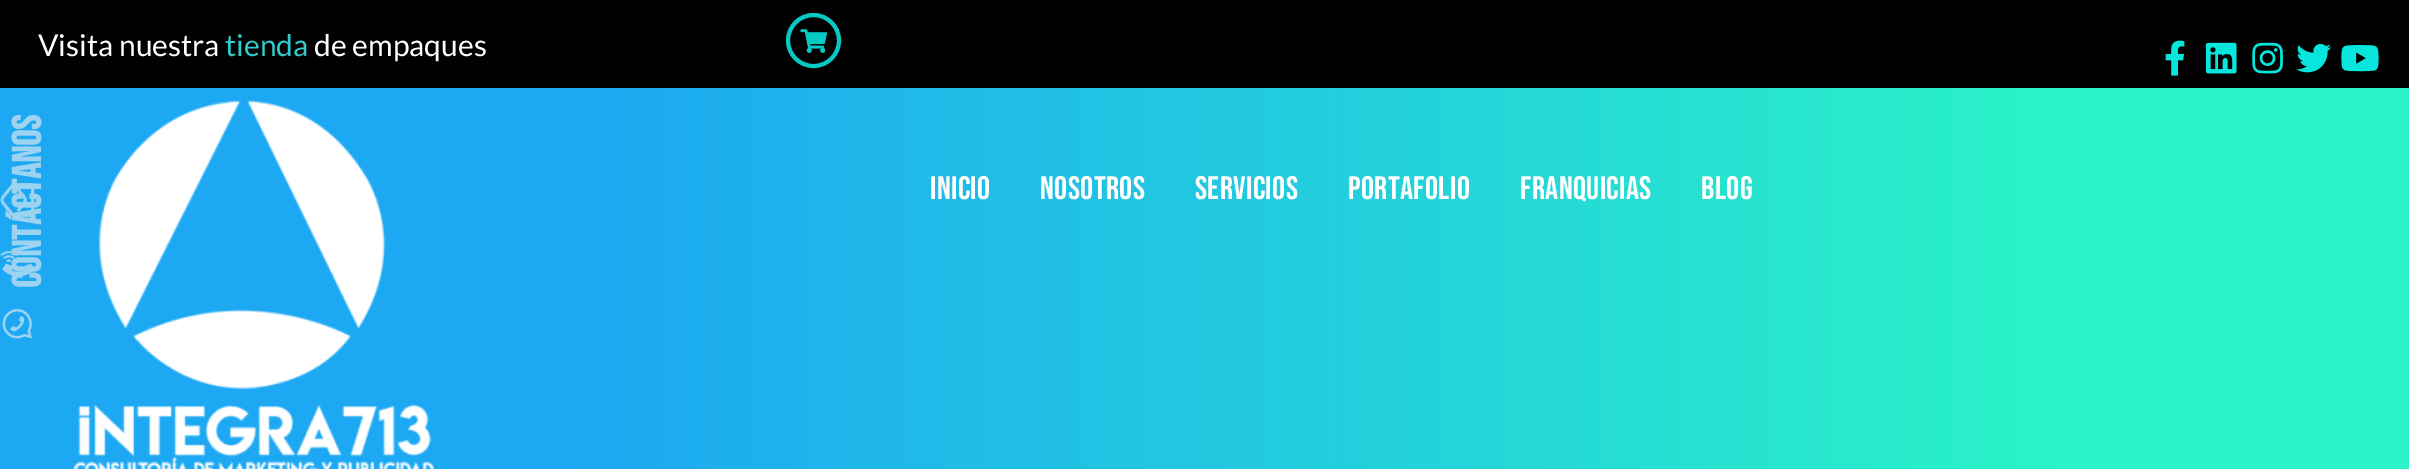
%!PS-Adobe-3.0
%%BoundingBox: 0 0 2409 469
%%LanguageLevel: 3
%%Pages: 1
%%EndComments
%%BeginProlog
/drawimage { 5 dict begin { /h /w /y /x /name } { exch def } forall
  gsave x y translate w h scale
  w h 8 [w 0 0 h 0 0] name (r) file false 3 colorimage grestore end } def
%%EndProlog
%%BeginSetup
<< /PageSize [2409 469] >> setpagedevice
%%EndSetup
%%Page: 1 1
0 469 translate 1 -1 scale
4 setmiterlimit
0.004 setgray
0 0 2409 469 rectfill
gsave newpath 0 88 moveto 2409 88 lineto 2409 469 lineto 0 469 lineto closepath clip newpath
<< /ShadingType 2 /ColorSpace /DeviceRGB /Coords [0 288 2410 287] /Extend [true true] /Function << /FunctionType 3 /Domain [0 1] /Functions [<< /FunctionType 2 /Domain [0 1] /C0 [0.114 0.659 0.953] /C1 [0.114 0.659 0.953] /N 1 >> << /FunctionType 2 /Domain [0 1] /C0 [0.114 0.659 0.953] /C1 [0.165 0.957 0.78] /N 1 >> << /FunctionType 2 /Domain [0 1] /C0 [0.165 0.957 0.78] /C1 [0.165 0.957 0.78] /N 1 >>] /Bounds [0.24 0.86] /Encode [0 1 0 1 0 1] >> >> shfill grestore
(images/1.raw) 0 183 35 34 drawimage
(images/2.raw) 0 251 35 26 drawimage
(images/3.raw) 2 309 30 30 drawimage
0.024 0.788 0.769 setrgbcolor
4 setlinewidth
newpath 813.5 40.5 25.5 0 360 arc closepath stroke
(images/4.raw) 800 29 28 24 drawimage
(images/5.raw) 2165 40 20 36 drawimage
(images/6.raw) 2205 42 32 32 drawimage
(images/7.raw) 2252 42 31 32 drawimage
(images/8.raw) 2296 43 36 30 drawimage
(images/9.raw) 2341 45 38 27 drawimage
(images/10.raw) 73 100 361 369 drawimage
/BebasNeue-Bold [40 0 0 -40 0 0] selectfont
0.608 0.827 0.945 setrgbcolor
gsave 41 288 translate -90 rotate 0 0 moveto (Contáctanos) show grestore
/Lato-Regular [30 0 0 -30 0 0] selectfont
1 setgray
38 56 moveto (Visita nuestra) show
0.2 0.8 0.8 setrgbcolor
225 56 moveto (tienda) show
1 setgray
314 56 moveto (de empaques) show
/BebasNeue-Regular [32.5 0 0 -32.5 0 0] selectfont
930 199 moveto 0.4 0 (Inicio) ashow
1040 199 moveto 0.4 0 (Nosotros) ashow
1195 199 moveto 0.4 0 (Servicios) ashow
1348 199 moveto 0.4 0 (Portafolio) ashow
1520 199 moveto 0.4 0 (Franquicias) ashow
1701 199 moveto 0.4 0 (Blog) ashow
showpage
%%EOF
